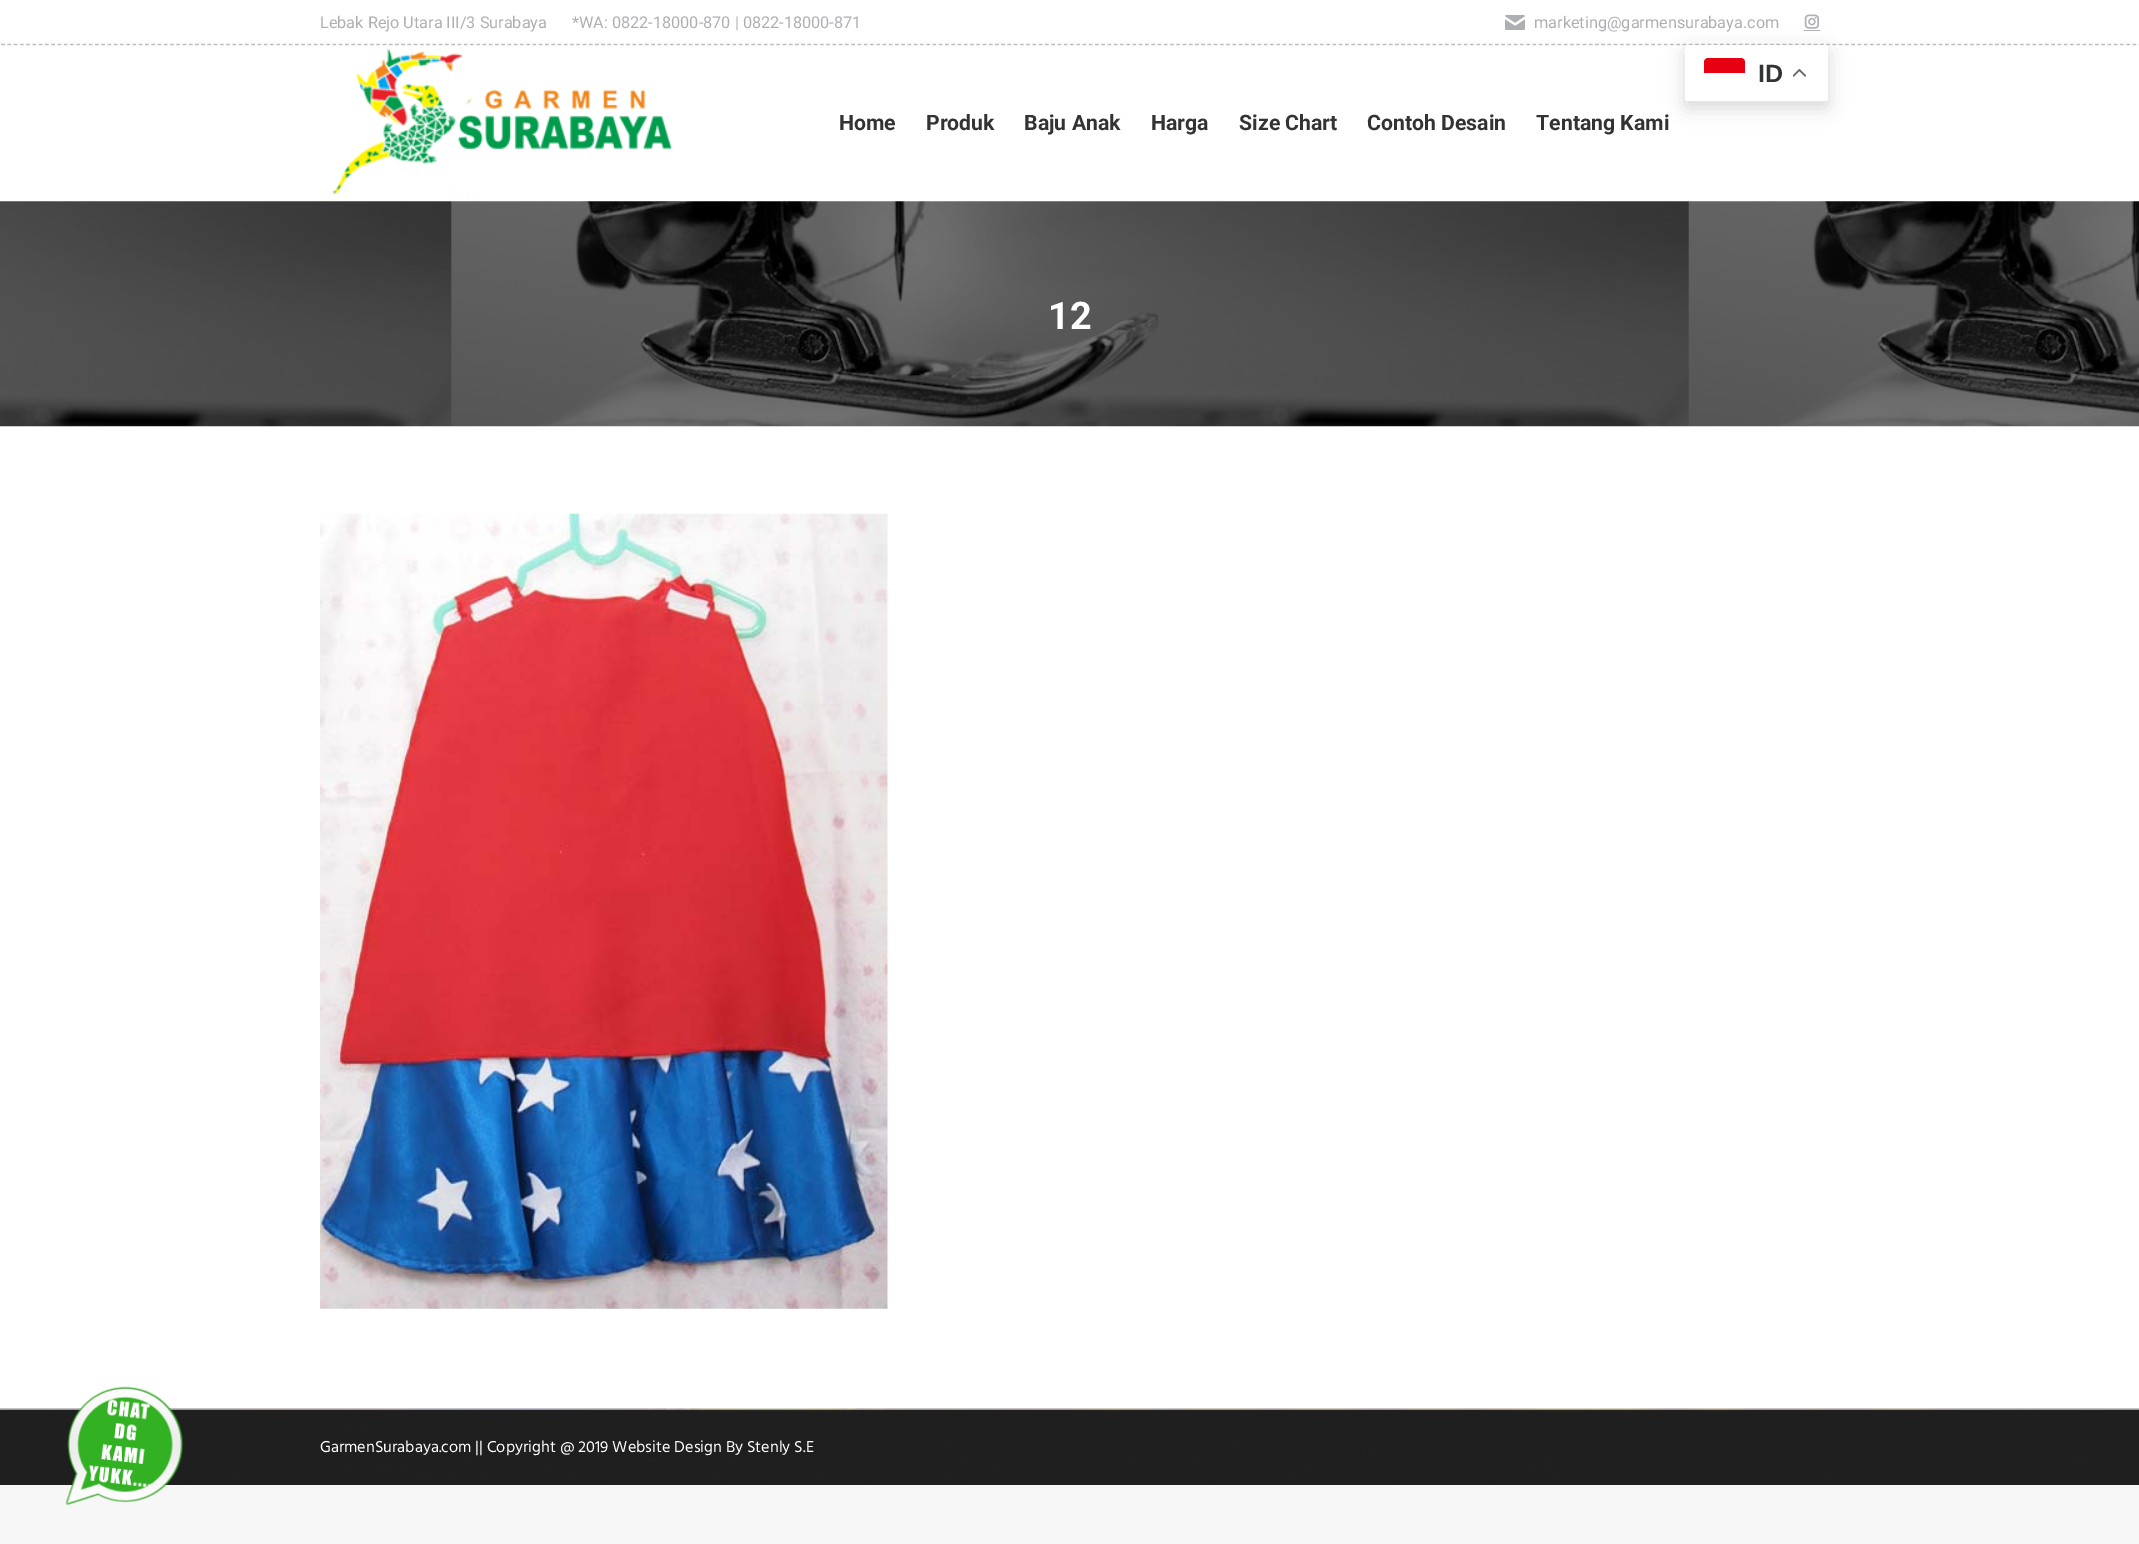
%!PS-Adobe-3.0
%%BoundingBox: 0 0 2139 1544
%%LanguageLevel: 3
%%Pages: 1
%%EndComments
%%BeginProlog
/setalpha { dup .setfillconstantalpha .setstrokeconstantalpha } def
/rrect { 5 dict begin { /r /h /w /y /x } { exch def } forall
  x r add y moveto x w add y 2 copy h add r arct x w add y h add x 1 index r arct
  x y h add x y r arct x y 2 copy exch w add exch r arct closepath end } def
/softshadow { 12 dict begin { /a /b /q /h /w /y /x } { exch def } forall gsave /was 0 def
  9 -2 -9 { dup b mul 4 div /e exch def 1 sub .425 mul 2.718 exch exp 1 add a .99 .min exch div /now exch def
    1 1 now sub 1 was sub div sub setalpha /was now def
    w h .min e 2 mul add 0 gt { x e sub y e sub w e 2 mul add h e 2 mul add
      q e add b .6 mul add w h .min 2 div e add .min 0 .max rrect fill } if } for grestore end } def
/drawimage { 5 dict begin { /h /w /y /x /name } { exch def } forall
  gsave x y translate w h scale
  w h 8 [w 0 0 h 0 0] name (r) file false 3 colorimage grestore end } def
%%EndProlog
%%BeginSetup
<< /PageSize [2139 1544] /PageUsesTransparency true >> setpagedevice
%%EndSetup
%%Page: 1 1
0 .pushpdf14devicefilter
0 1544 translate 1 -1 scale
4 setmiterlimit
0.969 setgray
0 0 2139 1544 rectfill
1 setgray
0 0 2139 1409 rectfill
(images/8.raw) 0 1408 2139 77 drawimage
0.6 setgray
0 1409 2139 1 rectfill
(images/1.raw) 65 1386 119 119 drawimage
(images/2.raw) 1505 15 20 15 drawimage
(images/3.raw) 1804 14 15 15 drawimage
0.682 0.686 0.71 setrgbcolor
1804 30 16 1 rectfill
0.749 setgray
1.2 setlinewidth
[3.75 2.5] 0 setdash
newpath -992.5 44.5 moveto 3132.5 44.5 lineto stroke
(images/4.raw) 332 48 340 148 drawimage
0 setgray
1685 51 143 57 2.5 9.5 0.15 softshadow
1 setgray
1685 45 143 56 2.5 rrect fill
0.906 0 0.067 setrgbcolor
newpath 1708 58 moveto 1741 58 lineto 1743 58 1745 60 1745 62 curveto 1745 74 lineto 1704 74 lineto 1704 62 lineto 1704 60 1706 58 1708 58 curveto closepath fill
gsave
1704 58 41 31 4 rrect clip newpath
1 setgray
1704 73 41 15 rectfill
grestore
(images/5.raw) 1793 68 13 9 drawimage
(images/6.raw) 0 201 2139 226 drawimage
(images/7.raw) 320 513 568 796 drawimage
/Roboto-Regular [16.25 0 0 -16.25 0 0] selectfont
0.682 0.686 0.71 setrgbcolor
320 28 moveto (Lebak Rejo Utara III/3 Surabaya) show
572 28 moveto (*WA: 0822-18000-870 | 0822-18000-871) show
1534 28 moveto (marketing@garmensurabaya.com) show
/LiberationSans-Bold [25 0 0 -25 0 0] selectfont
0.2 setgray
1758 82 moveto (ID) show
/Roboto-Bold [21.25 0 0 -21.25 0 0] selectfont
839 130 moveto (Home) show
926 130 moveto (Produk) show
1024 130 moveto (Baju Anak) show
1151 130 moveto (Harga) show
1239 130 moveto (Size Chart) show
1367 130 moveto (Contoh Desain) show
1536 130 moveto (Tentang Kami) show
/Roboto-Bold [38 0 0 -38 0 0] selectfont
1 setgray
1048 329 moveto (12) show
/Hind-Regular [16.25 0 0 -16.25 0 0] selectfont
320 1452 moveto (GarmenSurabaya.com || Copyright @ 2019 Website Design By Stenly S.E) show
.poppdf14devicefilter showpage
%%EOF
